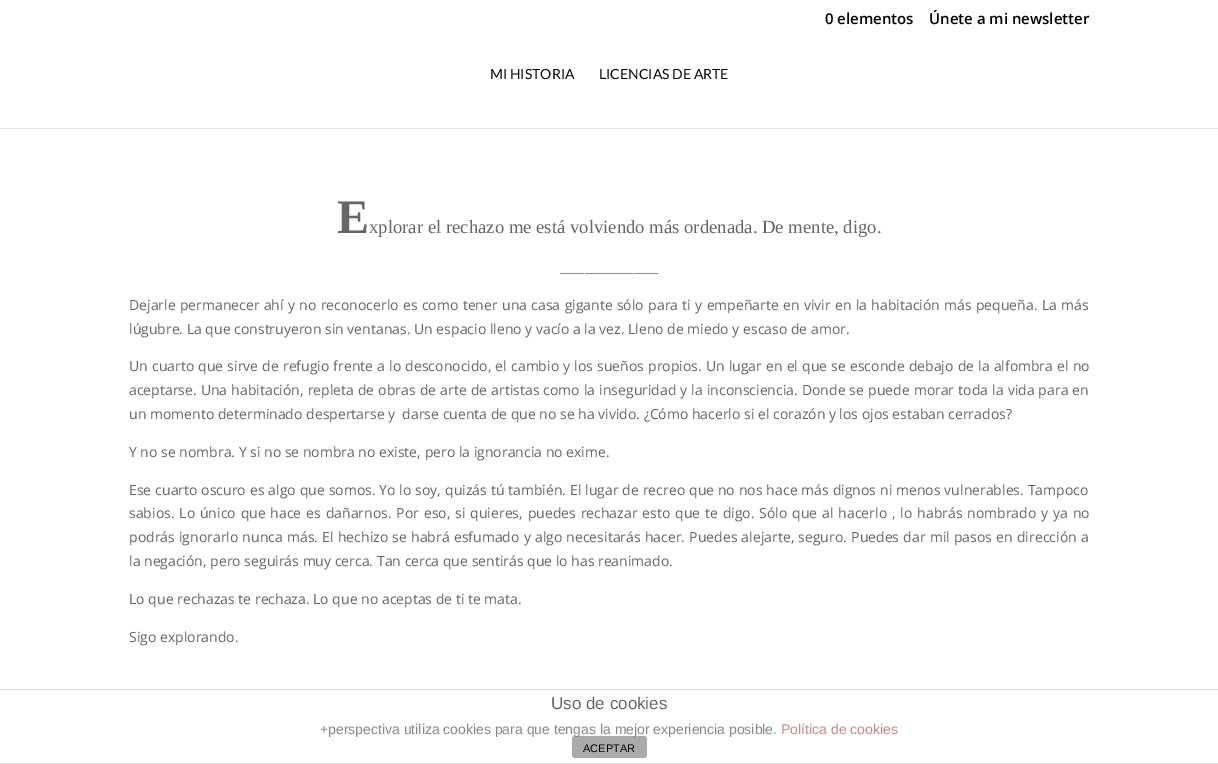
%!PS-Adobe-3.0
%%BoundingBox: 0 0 1218 764
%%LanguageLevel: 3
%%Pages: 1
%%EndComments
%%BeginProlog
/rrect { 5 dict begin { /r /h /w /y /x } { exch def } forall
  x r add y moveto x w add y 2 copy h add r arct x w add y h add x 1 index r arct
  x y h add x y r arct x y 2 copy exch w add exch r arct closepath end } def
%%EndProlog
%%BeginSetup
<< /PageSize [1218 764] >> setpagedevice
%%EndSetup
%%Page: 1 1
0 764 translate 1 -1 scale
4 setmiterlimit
1 setgray
0 0 1218 764 rectfill
0.902 setgray
0 128 1218 1 rectfill
0.867 setgray
0 689 1218 1 rectfill
0 763 1218 1 rectfill
0.667 setgray
572 736 75 22 3 rrect fill
/OpenSans-SemiBold [15 0 0 -15 0 0] selectfont
0 setgray
825 24 moveto (0 elementos) show
929 24 moveto (Únete a mi newsletter) show
/Lato-Regular [14 0 0 -14 0 0] selectfont
0.027 0.035 0.035 setrgbcolor
490 79 moveto (MI HISTORIA) show
599 79 moveto (LICENCIAS DE ARTE) show
/LiberationSerif-Bold [48 0 0 -48 0 0] selectfont
0.4 setgray
337 233 moveto (E) show
/LiberationSerif-Regular [18.7 0 0 -18.7 0 0] selectfont
369 233 moveto (xplorar el rechazo me está volviendo más ordenada. De mente, digo.) show
/OpenSans-Regular [14 0 0 -14 0 0] selectfont
560 272 moveto (________________) show
129 310 moveto 0.7 0 32 (Dejarle permanecer ahí y no reconocerlo es como tener una casa gigante sólo para ti y empeñarte en vivir en la habitación más pequeña. La más) widthshow
129 334 moveto (lúgubre. La que construyeron sin ventanas. Un espacio lleno y vacío a la vez. Lleno de miedo y escaso de amor.) show
129 371 moveto 0.5 0 32 (Un cuarto que sirve de refugio frente a lo desconocido, el cambio y los sueños propios. Un lugar en el que se esconde debajo de la alfombra el no) widthshow
129 395 moveto 0.45 0 32 (aceptarse. Una habitación, repleta de obras de arte de artistas como la inseguridad y la inconsciencia. Donde se puede morar toda la vida para en) widthshow
129 419 moveto (un momento determinado despertarse y  darse cuenta de que no se ha vivido. ¿Cómo hacerlo si el corazón y los ojos estaban cerrados?) show
129 457 moveto (Y no se nombra. Y si no se nombra no existe, pero la ignorancia no exime.) show
129 495 moveto 0.3 0 32 (Ese cuarto oscuro es algo que somos. Yo lo soy, quizás tú también. El lugar de recreo que no nos hace más dignos ni menos vulnerables. Tampoco) widthshow
129 518 moveto 1.25 0 32 (sabios. Lo único que hace es dañarnos. Por eso, si quieres, puedes rechazar esto que te digo. Sólo que al hacerlo , lo habrás nombrado y ya no) widthshow
129 542 moveto 0.6 0 32 (podrás ignorarlo nunca más. El hechizo se habrá esfumado y algo necesitarás hacer. Puedes alejarte, seguro. Puedes dar mil pasos en dirección a) widthshow
129 566 moveto (la negación, pero seguirás muy cerca. Tan cerca que sentirás que lo has reanimado.) show
129 604 moveto (Lo que rechazas te rechaza. Lo que no aceptas de ti te mata.) show
129 642 moveto (Sigo explorando.) show
/LiberationSans-Regular [17 0 0 -17 0 0] selectfont
551 709 moveto (Uso de cookies) show
/LiberationSans-Regular [14 0 0 -14 0 0] selectfont
0.533 setgray
320 734 moveto (+perspectiva utiliza cookies para que tengas la mejor experiencia posible.) show
0.8 0.533 0.533 setrgbcolor
781 734 moveto (Política de cookies) show
/LiberationSans-Regular [11 0 0 -11 0 0] selectfont
0 setgray
583 752 moveto (ACEPTAR) show
showpage
%%EOF
